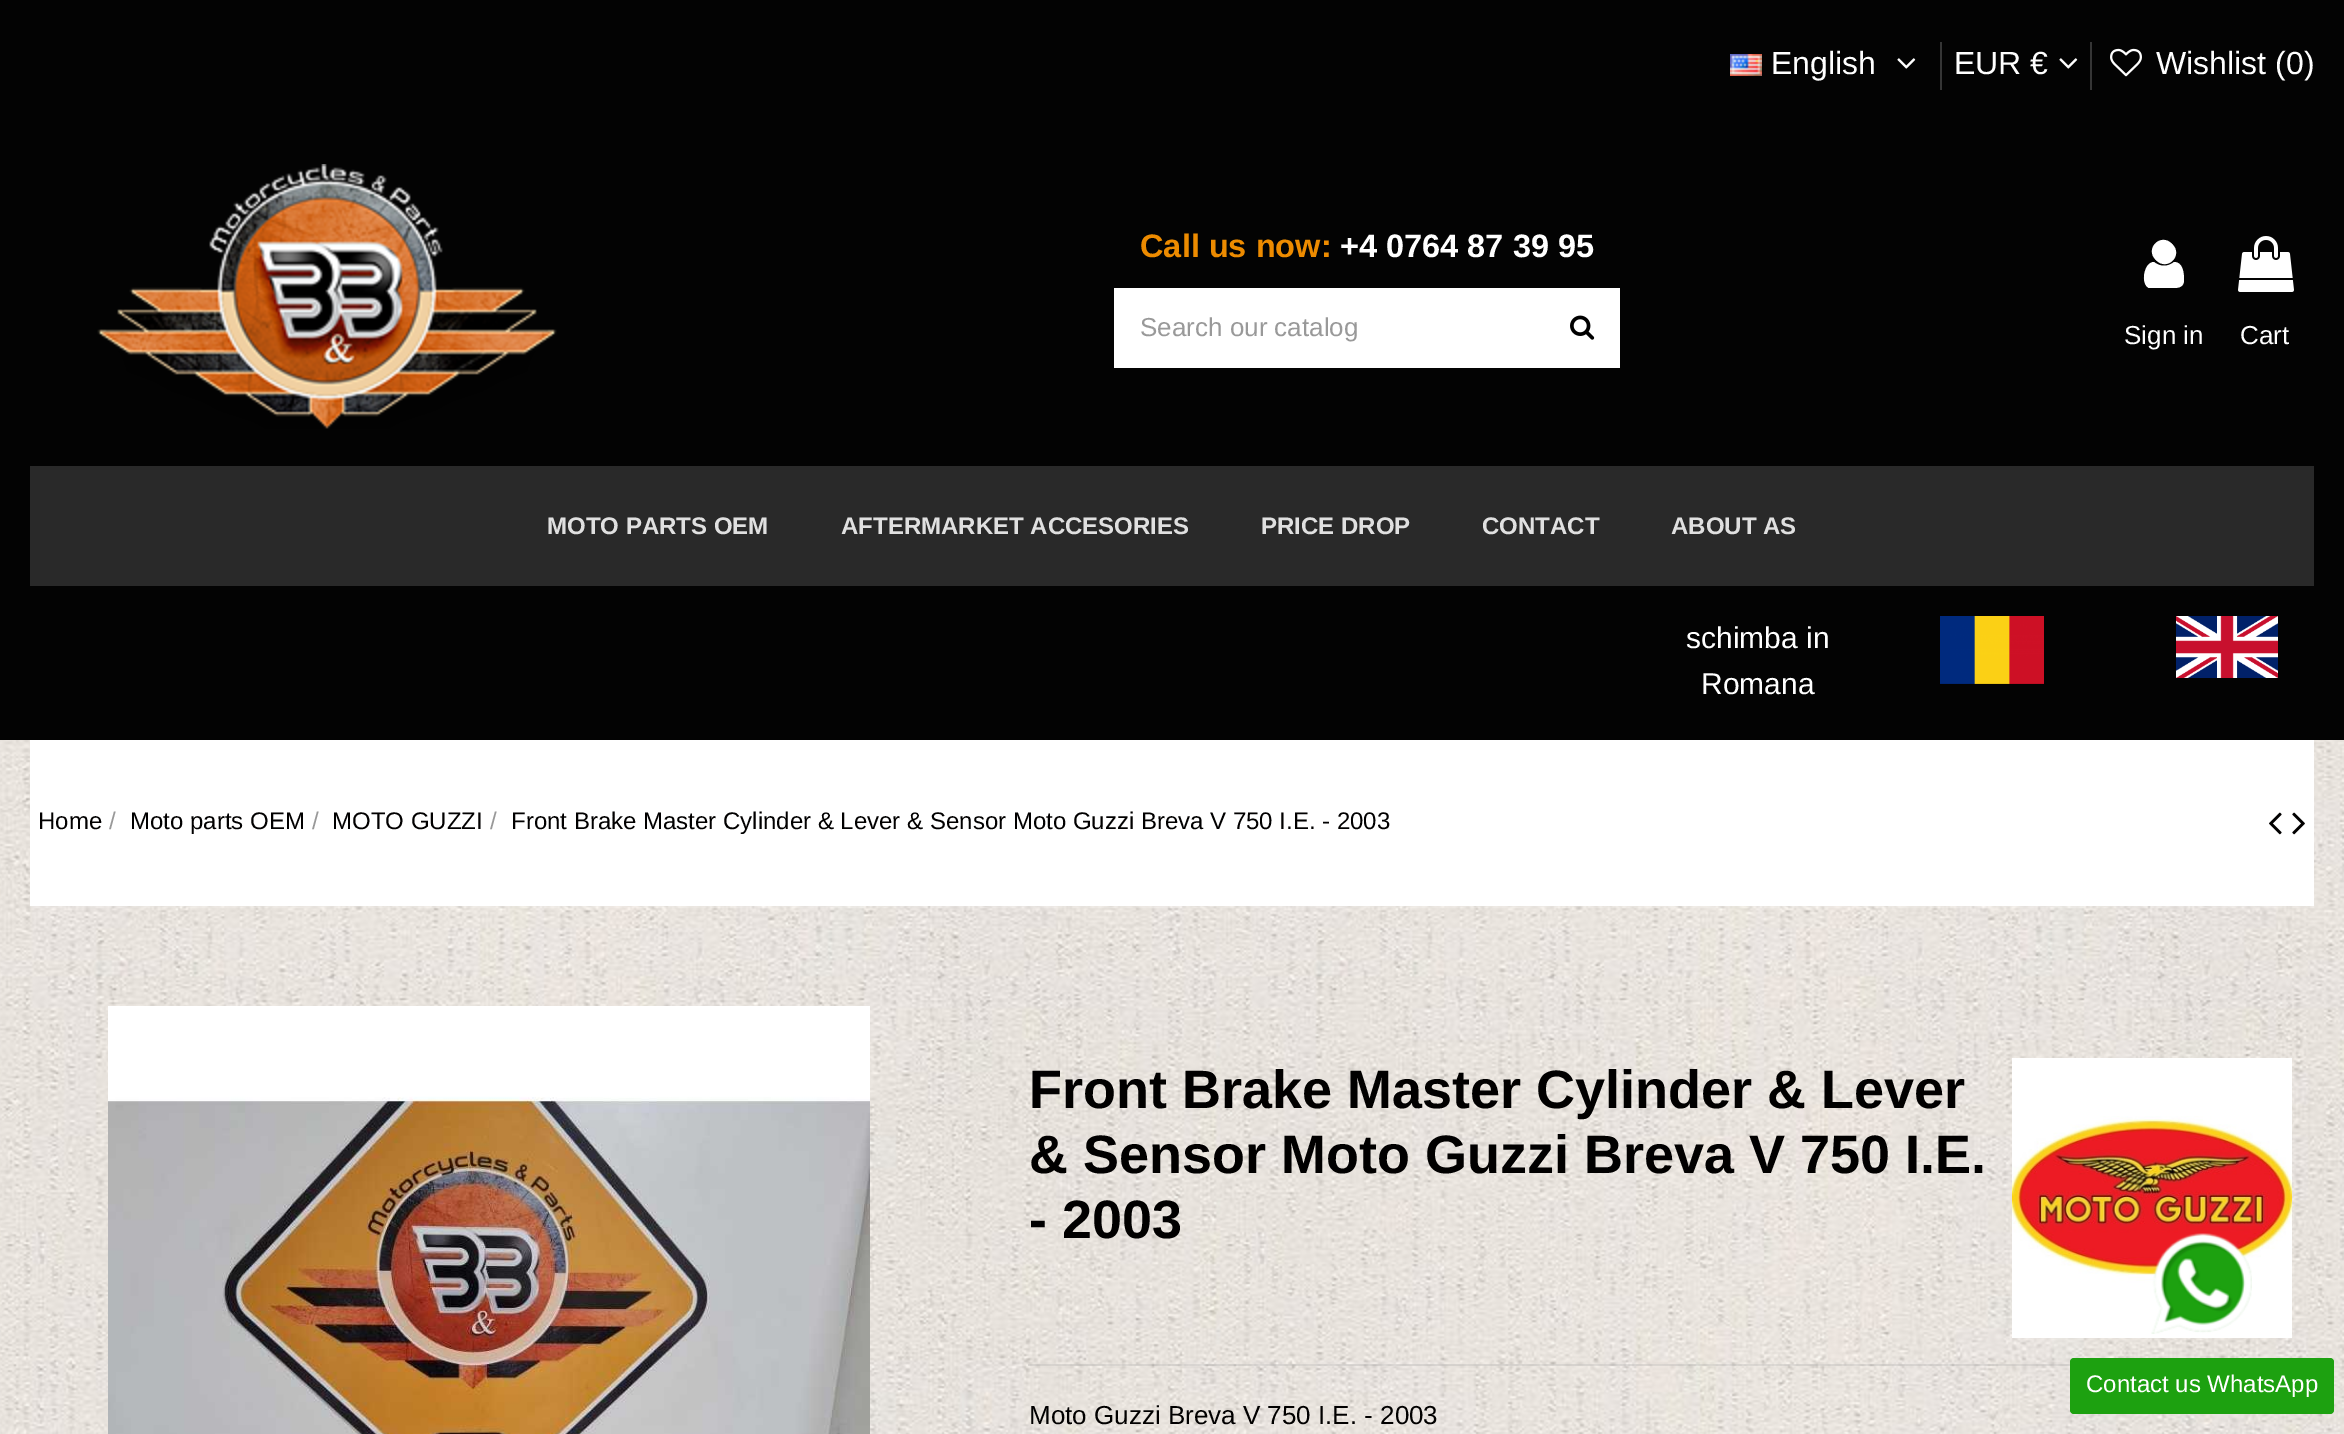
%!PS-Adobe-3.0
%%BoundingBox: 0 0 2344 1434
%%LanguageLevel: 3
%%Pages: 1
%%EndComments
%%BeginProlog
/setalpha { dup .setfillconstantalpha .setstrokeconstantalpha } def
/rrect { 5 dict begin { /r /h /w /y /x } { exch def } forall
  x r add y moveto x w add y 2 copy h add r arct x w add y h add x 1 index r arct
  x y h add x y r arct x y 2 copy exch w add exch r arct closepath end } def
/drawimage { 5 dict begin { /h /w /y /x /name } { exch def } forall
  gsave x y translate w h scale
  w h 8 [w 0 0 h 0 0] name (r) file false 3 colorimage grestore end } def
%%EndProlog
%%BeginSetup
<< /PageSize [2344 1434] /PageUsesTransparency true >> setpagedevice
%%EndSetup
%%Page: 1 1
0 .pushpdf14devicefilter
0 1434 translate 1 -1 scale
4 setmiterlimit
0.012 setgray
0 0 2344 1434 rectfill
(images/1.raw) 1730 54 32 22 drawimage
(images/2.raw) 1897 58 19 11 drawimage
0.208 setgray
1940 42 2 48 rectfill
(images/2.raw) 2059 58 19 11 drawimage
2090 42 2 48 rectfill
(images/3.raw) 2110 48 32 29 drawimage
(images/4.raw) 97 164 460 265 drawimage
1 setgray
1114 288 506 80 rectfill
(images/5.raw) 1570 315 25 25 drawimage
newpath 2184 280 moveto 2184 287 2179 288 2173 288 curveto 2149 288 lineto 2140 284 2144 262 2154 262 curveto 2160 267 2168 267 2174 262 curveto 2183 262 2184 273 2184 280 curveto closepath 2172 244 moveto 2184 255 2167 272 2156 260 curveto 2144 249 2161 232 2172 244 curveto closepath fill
(images/6.raw) 2238 236 56 56 drawimage
0.161 setgray
30 466 2284 120 rectfill
(images/7.raw) 1940 616 104 68 drawimage
(images/8.raw) 2176 616 102 62 drawimage
(images/9.raw) 0 740 2344 694 drawimage
0.12 setalpha
1 setgray
30 906 2284 2 rectfill
1 setalpha
30 740 2284 166 rectfill
(images/10.raw) 2269 812 13 23 drawimage
(images/11.raw) 2292 812 13 23 drawimage
(images/12.raw) 108 1006 762 428 drawimage
0.25 setalpha
0.627 setgray
1028 1364 1042 2 rectfill
1 setalpha
(images/13.raw) 2012 1058 280 280 drawimage
(images/14.raw) 2151 1233 101 101 drawimage
0.114 0.631 0.063 setrgbcolor
2070 1358 264 56 4 rrect fill
/LiberationSans-Regular [32 0 0 -32 0 0] selectfont
1 setgray
1771 74 moveto (English) show
1954 74 moveto (EUR €) show
2156 74 moveto (Wishlist \(0\)) show
/LiberationSans-Bold [32.5 0 0 -32.5 0 0] selectfont
0.929 0.545 0 setrgbcolor
1140 257 moveto (Call us now:) show
1 setgray
1340 257 moveto (+4 0764 87 39 95) show
/LiberationSans-Regular [26 0 0 -26 0 0] selectfont
0.6 setgray
1140 336 moveto (Search our catalog) show
1 setgray
2124 344 moveto (Sign in) show
2240 344 moveto (Cart) show
/LiberationSans-Bold [24 0 0 -24 0 0] selectfont
0.878 setgray
547 534 moveto (MOTO PARTS OEM) show
841 534 moveto (AFTERMARKET ACCESORIES) show
1261 534 moveto (PRICE DROP) show
1482 534 moveto (CONTACT) show
1671 534 moveto (ABOUT AS) show
/LiberationSans-Regular [30 0 0 -30 0 0] selectfont
1 setgray
1686 648 moveto (schimba in) show
1701 694 moveto (Romana) show
/LiberationSans-Regular [24 0 0 -24 0 0] selectfont
0.004 0 0 setrgbcolor
38 829 moveto (Home) show
0.6 setgray
109 829 moveto (/) show
0.004 0 0 setrgbcolor
130 829 moveto (Moto parts OEM) show
0.6 setgray
312 829 moveto (/) show
0.004 0 0 setrgbcolor
332 829 moveto (MOTO GUZZI) show
0.6 setgray
490 829 moveto (/) show
0.004 0 0 setrgbcolor
511 829 moveto (Front Brake Master Cylinder & Lever & Sensor Moto Guzzi Breva V 750 I.E. - 2003) show
/LiberationSans-Bold [54 0 0 -54 0 0] selectfont
1029 1108 moveto (Front Brake Master Cylinder & Lever) show
1029 1173 moveto (& Sensor Moto Guzzi Breva V 750 I.E.) show
1029 1238 moveto (- 2003) show
/LiberationSans-Regular [26 0 0 -26 0 0] selectfont
1029 1424 moveto (Moto Guzzi Breva V 750 I.E. - 2003) show
/LiberationSans-Regular [24 0 0 -24 0 0] selectfont
1 setgray
2086 1392 moveto (Contact us WhatsApp) show
.poppdf14devicefilter showpage
%%EOF
